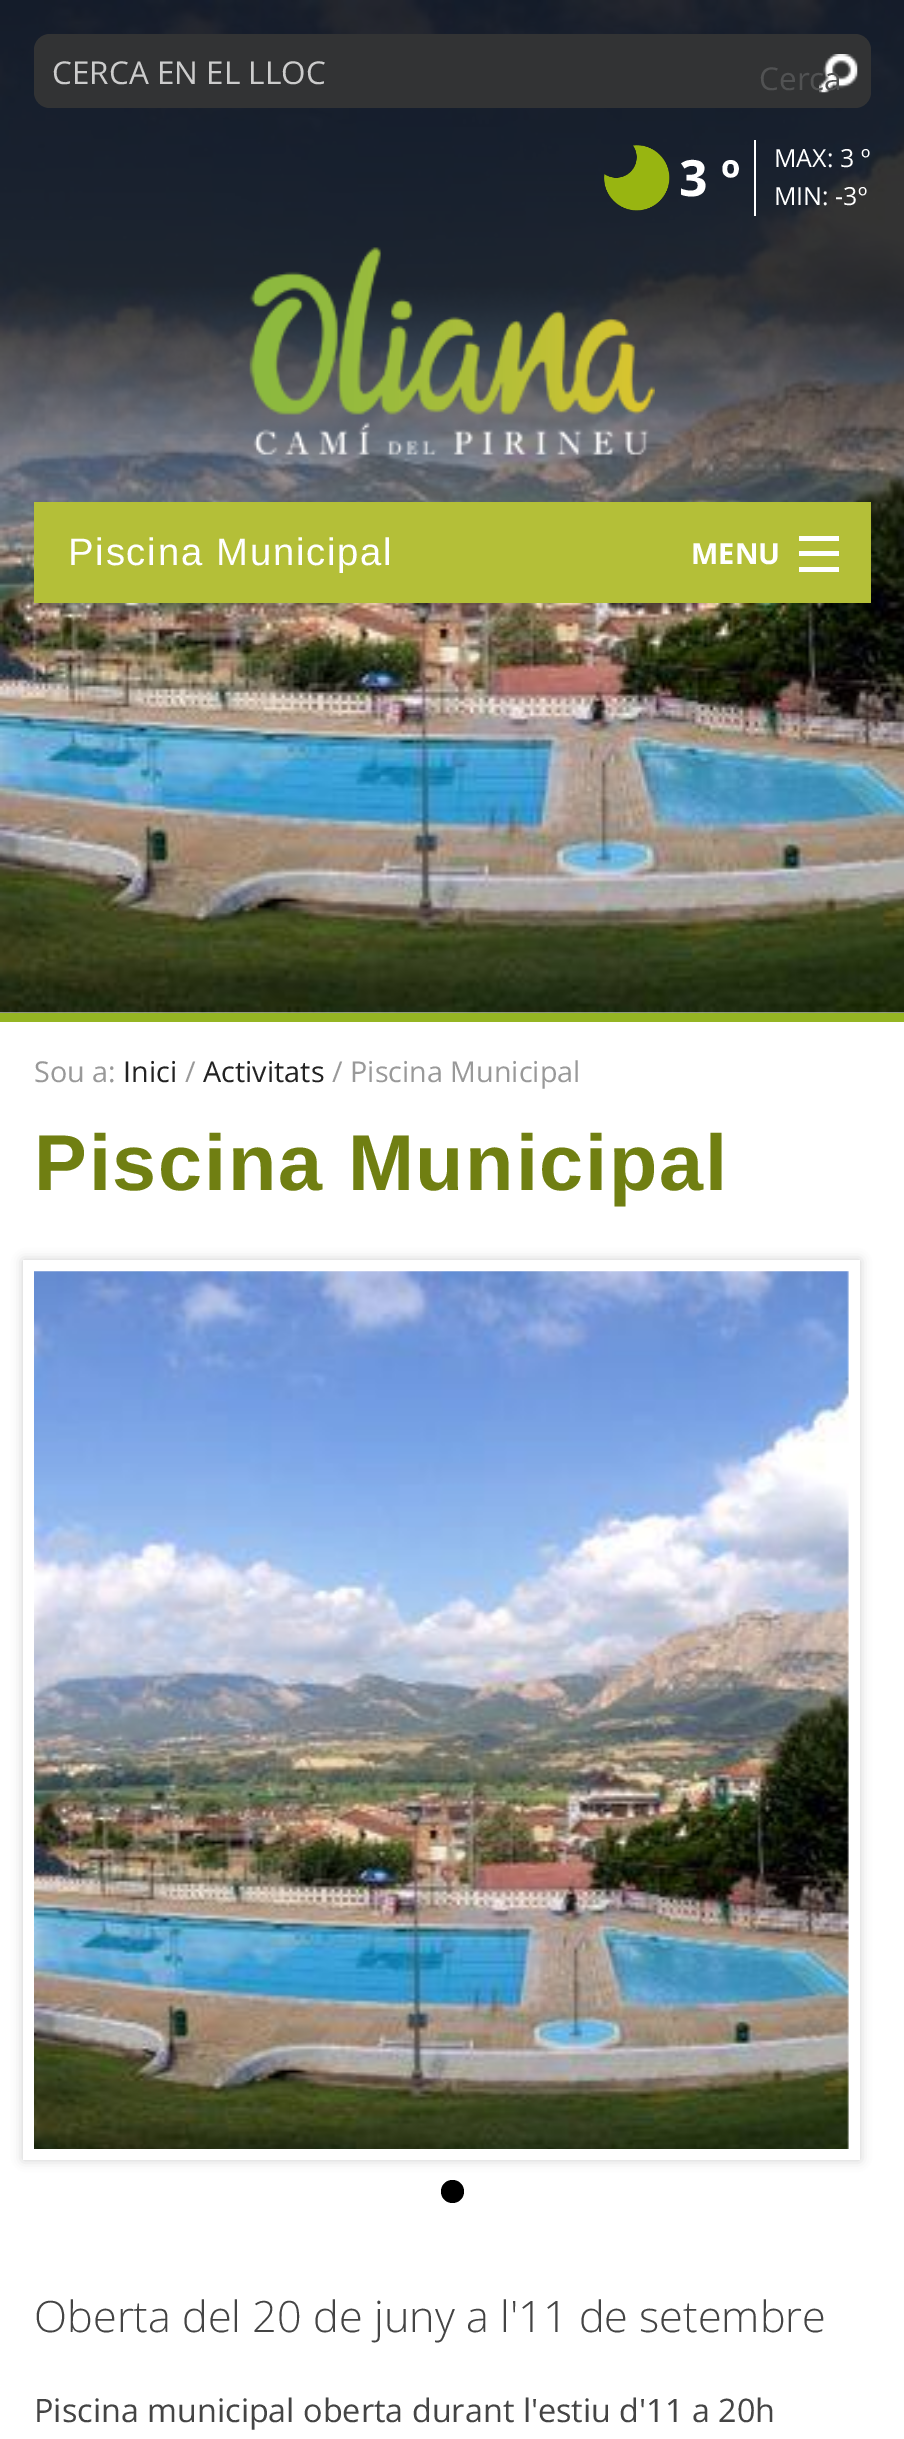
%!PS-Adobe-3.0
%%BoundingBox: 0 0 904 2439
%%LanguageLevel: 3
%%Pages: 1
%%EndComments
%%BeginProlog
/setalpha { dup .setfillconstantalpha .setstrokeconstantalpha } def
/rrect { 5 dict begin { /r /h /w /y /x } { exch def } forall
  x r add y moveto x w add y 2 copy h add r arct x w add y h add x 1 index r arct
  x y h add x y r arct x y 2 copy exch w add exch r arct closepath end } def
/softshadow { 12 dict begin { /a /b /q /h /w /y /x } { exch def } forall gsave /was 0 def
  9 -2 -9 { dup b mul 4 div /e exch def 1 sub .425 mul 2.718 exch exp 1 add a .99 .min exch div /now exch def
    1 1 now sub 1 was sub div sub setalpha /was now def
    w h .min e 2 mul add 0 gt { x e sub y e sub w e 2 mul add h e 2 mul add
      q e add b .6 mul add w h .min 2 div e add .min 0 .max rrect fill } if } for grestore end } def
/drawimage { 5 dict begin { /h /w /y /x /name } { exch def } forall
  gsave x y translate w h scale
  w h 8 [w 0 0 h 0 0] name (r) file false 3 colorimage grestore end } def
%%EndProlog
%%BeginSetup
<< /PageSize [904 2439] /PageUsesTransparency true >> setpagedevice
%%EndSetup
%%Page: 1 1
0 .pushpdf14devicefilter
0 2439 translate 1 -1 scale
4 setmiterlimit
1 setgray
0 0 904 2439 rectfill
0.584 0.71 0.137 setrgbcolor
0 1013 904 9 rectfill
(images/1.raw) 0 0 904 1013 drawimage
0.196 0.2 0.204 setrgbcolor
34 34 837 74 16 rrect fill
(images/2.raw) 819 54 39 39 drawimage
(images/3.raw) 604 145 66 66 drawimage
1 setgray
754 140 2 76 rectfill
(images/4.raw) 249 247 406 208 drawimage
0.706 0.749 0.22 setrgbcolor
34 502 837 101 rectfill
1 setgray
799 567 40 5 rectfill
799 551 40 5 rectfill
799 536 40 5 rectfill
0.8 setgray
23 1260 837 900 0 5.5 1 softshadow
1 setgray
23 1260 837 900 rectfill
(images/5.raw) 34 1271 815 878 drawimage
0 setgray
newpath 452.5 2191.5 11.5 0 360 arc closepath fill
/OpenSans-Regular [31.5 0 0 -31.5 0 0] selectfont
0.8 setgray
52 84 moveto (CERCA EN EL LLOC) show
0.318 0.322 0.325 setrgbcolor
759 90 moveto (Cerca) show
/OpenSans-Bold [50 0 0 -50 0 0] selectfont
1 setgray
679 196 moveto (3 º) show
/OpenSans-Regular [25 0 0 -25 0 0] selectfont
774 167 moveto (MAX: 3 º) show
774 205 moveto (MIN: -3º) show
/LiberationSans-Regular [38.25 0 0 -38.25 0 0] selectfont
68 565 moveto 1.75 0 (Piscina Municipal) ashow
/OpenSans-Bold [29 0 0 -29 0 0] selectfont
691 564 moveto (MENU) show
/OpenSans-Regular [28.75 0 0 -28.75 0 0] selectfont
0.6 setgray
34 1082 moveto (Sou a:) show
0.133 setgray
123 1082 moveto (Inici) show
0.6 setgray
185 1082 moveto (/) show
0.133 setgray
203 1082 moveto (Activitats) show
0.6 setgray
332 1082 moveto (/ Piscina Municipal) show
/LiberationSans-Bold [79.25 0 0 -79.25 0 0] selectfont
0.439 0.498 0.071 setrgbcolor
34 1190 moveto 1.75 0 (Piscina Municipal) ashow
/OpenSans-Light [43.25 0 0 -43.25 0 0] selectfont
0.267 setgray
34 2332 moveto (Oberta del 20 de juny a l'11 de setembre) show
/OpenSans-Regular [32.4 0 0 -32.4 0 0] selectfont
34 2422 moveto (Piscina municipal oberta durant l'estiu d'11 a 20h) show
.poppdf14devicefilter showpage
%%EOF
